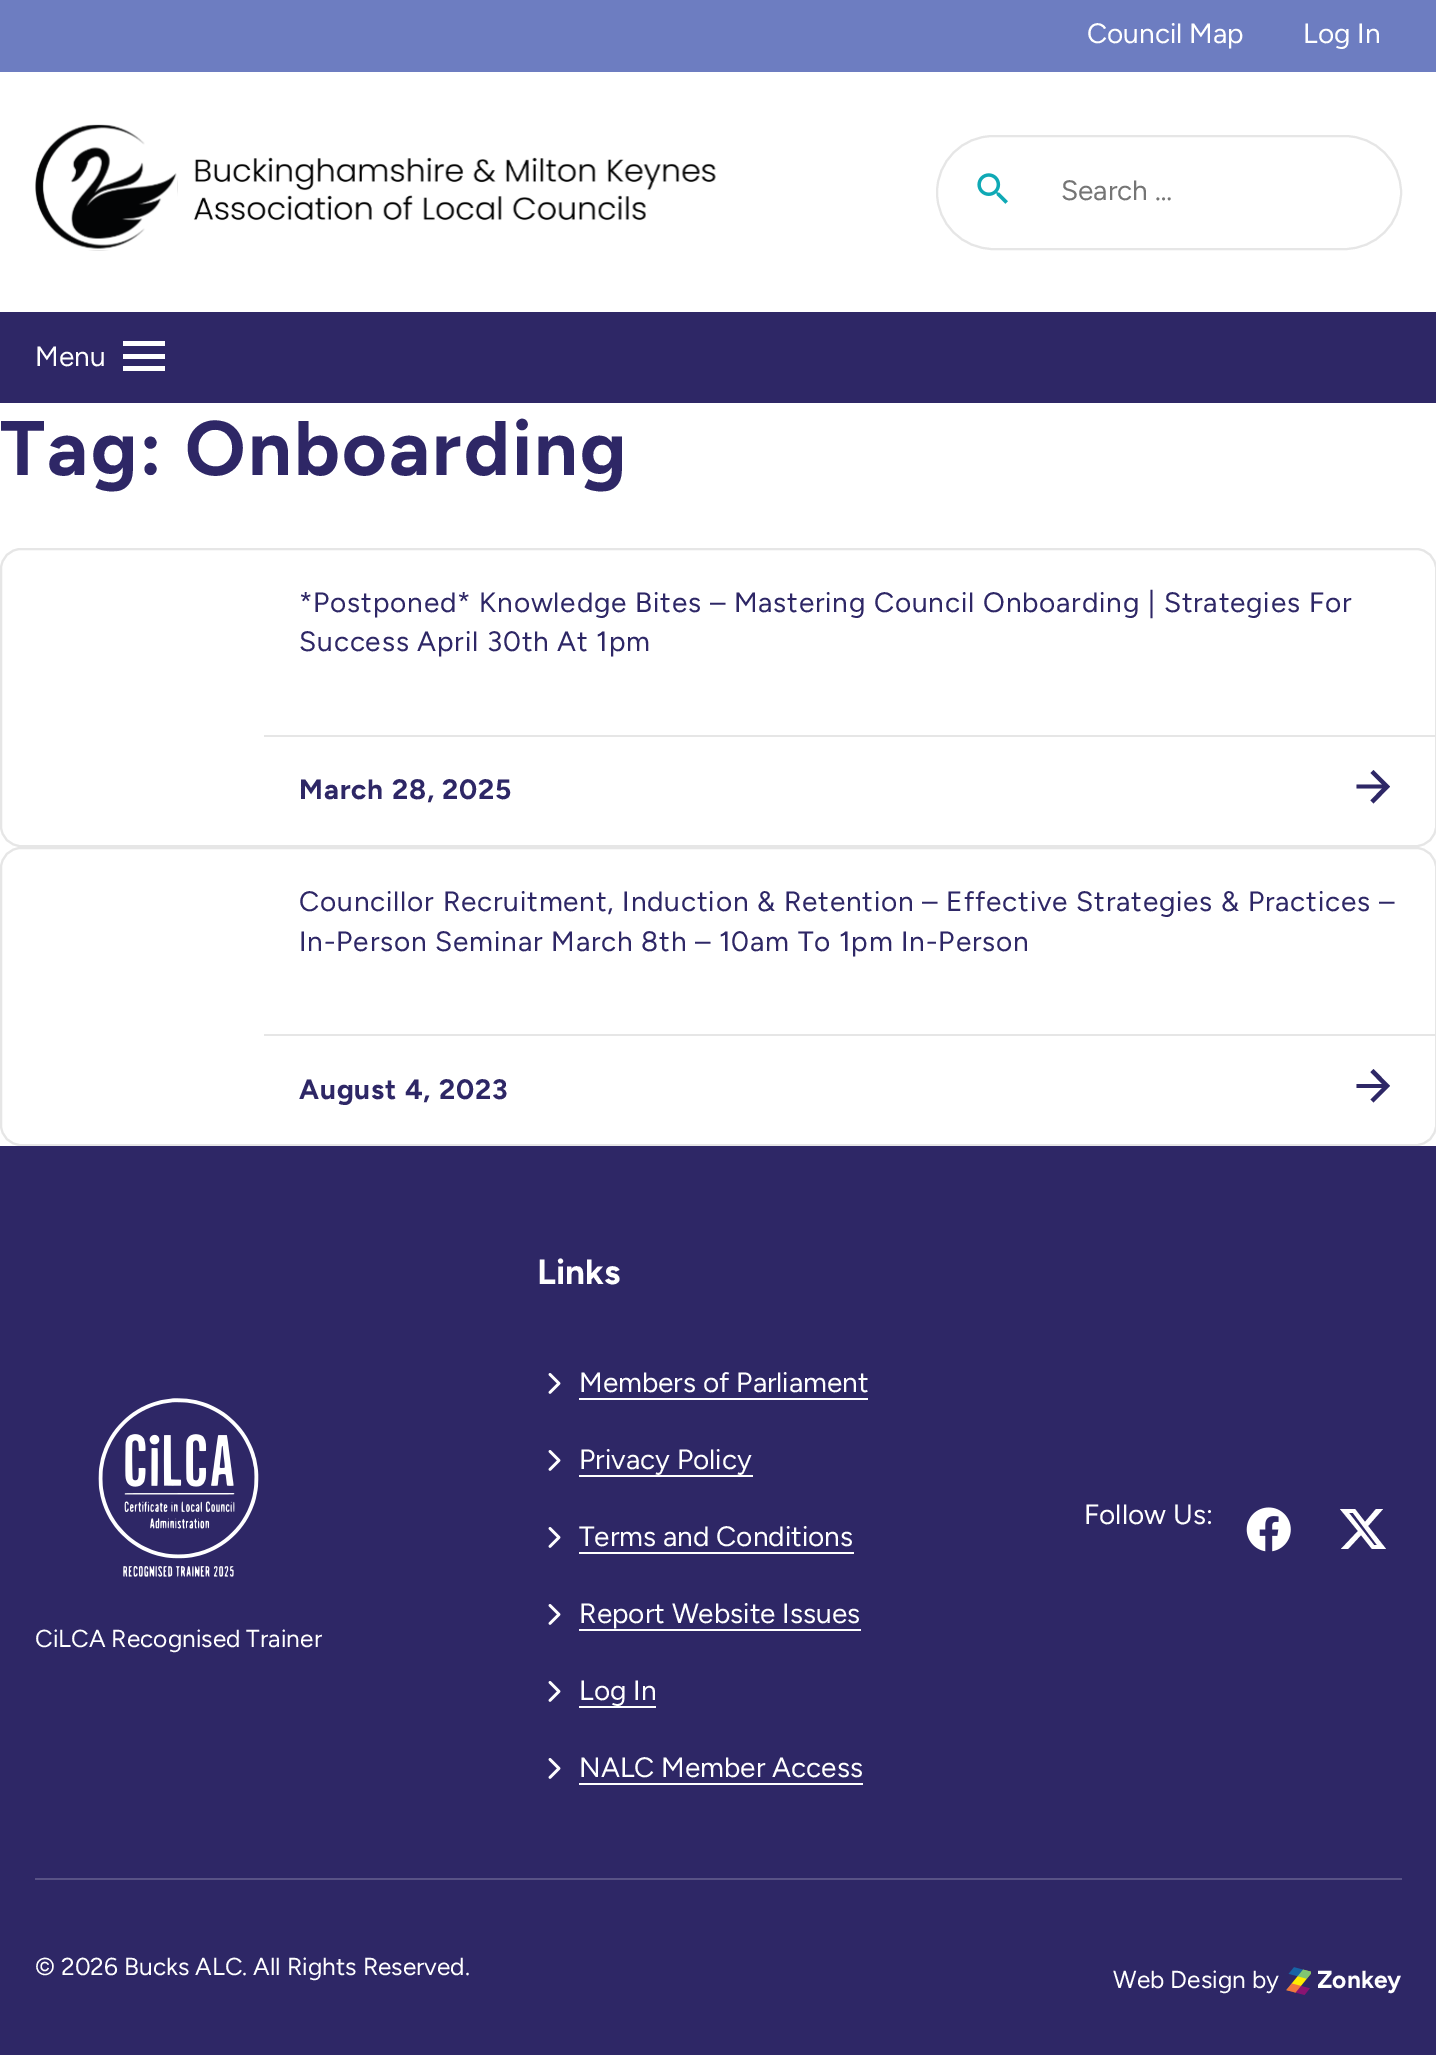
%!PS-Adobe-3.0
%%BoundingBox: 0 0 1436 2055
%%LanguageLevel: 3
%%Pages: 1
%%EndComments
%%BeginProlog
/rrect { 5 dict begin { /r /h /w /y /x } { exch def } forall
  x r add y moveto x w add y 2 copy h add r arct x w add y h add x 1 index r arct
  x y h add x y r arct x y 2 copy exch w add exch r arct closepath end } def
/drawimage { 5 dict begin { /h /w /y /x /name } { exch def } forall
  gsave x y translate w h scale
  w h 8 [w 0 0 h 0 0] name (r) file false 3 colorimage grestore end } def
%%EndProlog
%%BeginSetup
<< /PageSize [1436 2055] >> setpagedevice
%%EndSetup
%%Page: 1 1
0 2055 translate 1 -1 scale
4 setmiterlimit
1 setgray
0 0 1436 2055 rectfill
0.427 0.49 0.757 setrgbcolor
0 0 1436 72 rectfill
(images/1.raw) 35 124 681 127 drawimage
0.902 setgray
2 setlinewidth
937 136 464 113 56.5 rrect stroke
(images/2.raw) 977 173 31 31 drawimage
0.18 0.153 0.4 setrgbcolor
0 312 1436 91 rectfill
1 setgray
123 341 42 5 rectfill
123 354 42 5 rectfill
123 366 42 5 rectfill
0.902 setgray
1 549 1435 297 20 rrect stroke
264 735 1171 2 rectfill
0.18 0.153 0.4 setrgbcolor
newpath 1356.5 784.5 moveto 1356.5 788.5 lineto 1382 788.5 lineto 1370.5 800.5 lineto 1373.5 803.5 lineto 1390 786.5 lineto 1373.5 770 lineto 1370.5 773 lineto 1382 784.5 lineto closepath fill
0.902 setgray
1 848 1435 297 20 rrect stroke
264 1034 1171 2 rectfill
0.18 0.153 0.4 setrgbcolor
newpath 1356.5 1084 moveto 1356.5 1088 lineto 1382 1088 lineto 1370.5 1099.5 lineto 1373.5 1102.5 lineto 1390 1086 lineto 1373.5 1069 lineto 1370.5 1072 lineto 1382 1084 lineto closepath fill
0 1146 1436 909 rectfill
0.345 0.322 0.522 setrgbcolor
35 1878 1367 2 rectfill
(images/3.raw) 548 1373 13 21 drawimage
1 setgray
579 1398 289 2 rectfill
(images/3.raw) 548 1450 13 21 drawimage
579 1475 174 2 rectfill
(images/3.raw) 548 1527 13 21 drawimage
579 1552 275 2 rectfill
(images/3.raw) 548 1604 13 21 drawimage
579 1629 282 2 rectfill
(images/3.raw) 548 1681 13 21 drawimage
579 1706 77 2 rectfill
(images/3.raw) 548 1758 13 21 drawimage
579 1783 284 2 rectfill
(images/4.raw) 1246 1507 45 45 drawimage
newpath 1376 1509 moveto 1383 1509 lineto 1368 1526 lineto 1386 1549 lineto 1372 1549 lineto 1361 1535 lineto 1348 1549 lineto 1341 1549 lineto 1358 1531 lineto 1340 1509 lineto 1355 1509 lineto 1365 1522 lineto closepath 1374 1545 moveto 1377 1545 lineto 1353 1513 lineto 1349 1513 lineto closepath fill
(images/5.raw) 98 1398 161 179 drawimage
(images/6.raw) 1286 1967 25 28 drawimage
/Figtree-Regular [28 0 0 -28 0 0] selectfont
1087 43 moveto (Council Map) show
1303 43 moveto (Log In) show
0.459 setgray
1061 200 moveto (Search …) show
1 setgray
35 366 moveto (Menu) show
/Figtree-Bold [77 0 0 -77 0 0] selectfont
0.18 0.153 0.4 setrgbcolor
0 475 moveto 2.25 0 (Tag: Onboarding) ashow
/Figtree-Regular [28 0 0 -28 0 0] selectfont
299 612 moveto 0.85 0 (*Postponed* Knowledge Bites – Mastering Council Onboarding | Strategies For) ashow
299 651 moveto 0.85 0 (Success April 30th At 1pm) ashow
/Figtree-Bold [28 0 0 -28 0 0] selectfont
299 799 moveto 0.85 0 (March 28, 2025) ashow
/Figtree-Regular [28 0 0 -28 0 0] selectfont
299 911 moveto 0.85 0 (Councillor Recruitment, Induction & Retention – Effective Strategies & Practices –) ashow
299 951 moveto 0.85 0 (In-Person Seminar March 8th – 10am To 1pm In-Person) ashow
/Figtree-Bold [28 0 0 -28 0 0] selectfont
299 1099 moveto 0.85 0 (August 4, 2023) ashow
/Figtree-Bold [35 0 0 -35 0 0] selectfont
1 setgray
537 1284 moveto (Links) show
/Figtree-Regular [28 0 0 -28 0 0] selectfont
579 1392 moveto (Members of Parliament) show
579 1469 moveto (Privacy Policy) show
579 1546 moveto (Terms and Conditions) show
579 1623 moveto (Report Website Issues) show
579 1700 moveto (Log In) show
579 1777 moveto (NALC Member Access) show
1084 1524 moveto (Follow Us:) show
/Figtree-Regular [24.5 0 0 -24.5 0 0] selectfont
35 1647 moveto (CiLCA Recognised Trainer) show
35 1975 moveto (© 2026 Bucks ALC. All Rights Reserved.) show
1113 1988 moveto (Web Design by) show
/Figtree-Bold [24.5 0 0 -24.5 0 0] selectfont
1317 1988 moveto (Zonkey) show
showpage
%%EOF
